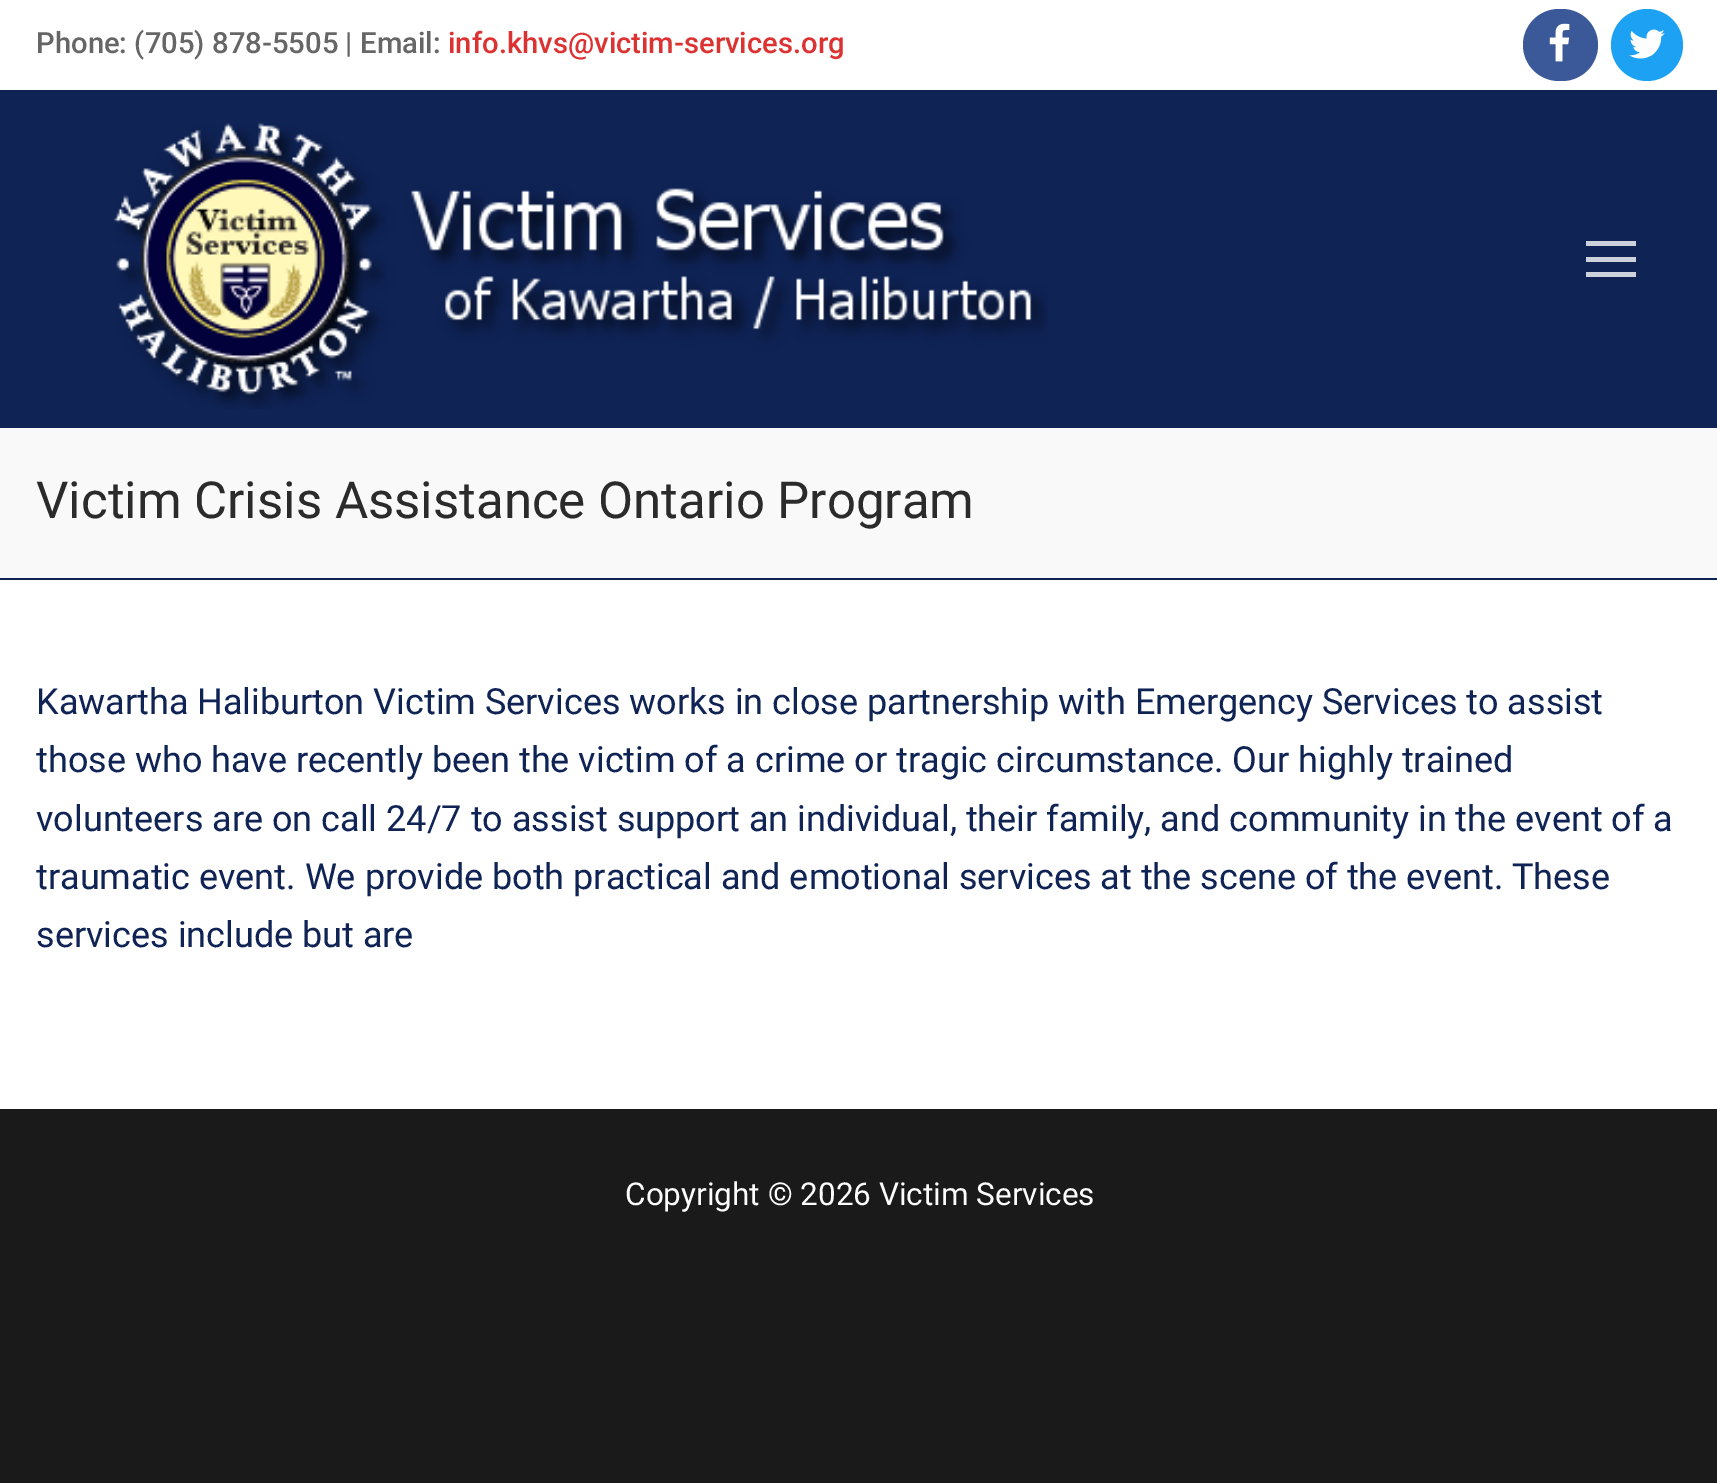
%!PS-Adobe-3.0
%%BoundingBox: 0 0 1717 1483
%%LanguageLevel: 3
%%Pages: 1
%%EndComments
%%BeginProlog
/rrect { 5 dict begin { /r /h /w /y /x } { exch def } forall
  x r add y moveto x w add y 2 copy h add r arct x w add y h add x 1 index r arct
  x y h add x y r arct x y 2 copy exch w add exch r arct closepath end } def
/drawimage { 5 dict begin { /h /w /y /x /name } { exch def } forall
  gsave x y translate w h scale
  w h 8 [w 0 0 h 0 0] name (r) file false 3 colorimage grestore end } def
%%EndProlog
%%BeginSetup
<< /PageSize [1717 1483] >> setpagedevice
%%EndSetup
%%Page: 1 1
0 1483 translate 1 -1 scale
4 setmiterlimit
0.102 setgray
0 0 1717 1483 rectfill
1 setgray
0 0 1717 90 rectfill
0.231 0.349 0.596 setrgbcolor
1523 9 75 72 36 rrect fill
(images/1.raw) 1549 23 21 39 drawimage
0.114 0.631 0.949 setrgbcolor
newpath 1647 45 36 0 360 arc closepath fill
(images/2.raw) 1629 29 36 30 drawimage
0.059 0.137 0.333 setrgbcolor
0 90 1717 338 rectfill
(images/3.raw) 114 123 934 286 drawimage
0.804 0.82 0.859 setrgbcolor
1586 257 50 5 rectfill
1586 241 50 5 rectfill
1586 272 50 5 rectfill
0.976 setgray
0 428 1717 153 rectfill
0.059 0.137 0.333 setrgbcolor
0 578 1717 2 rectfill
1 setgray
0 581 1717 528 rectfill
/Roboto-Medium [29.25 0 0 -29.25 0 0] selectfont
0.4 setgray
36 53 moveto (Phone: \(705\) 878-5505 | Email:) show
0.863 0.196 0.196 setrgbcolor
448 53 moveto (info.khvs@victim-services.org) show
/Roboto-Regular [51 0 0 -51 0 0] selectfont
0.169 setgray
36 518 moveto (Victim Crisis Assistance Ontario Program) show
/Roboto-Regular [36 0 0 -36 0 0] selectfont
0.059 0.137 0.333 setrgbcolor
36 714 moveto (Kawartha Haliburton Victim Services works in close partnership with Emergency Services to assist) show
36 772 moveto (those who have recently been the victim of a crime or tragic circumstance. Our highly trained) show
36 831 moveto (volunteers are on call 24/7 to assist support an individual, their family, and community in the event of a) show
36 889 moveto (traumatic event. We provide both practical and emotional services at the scene of the event. These) show
36 947 moveto (services include but are) show
/Roboto-Regular [31.5 0 0 -31.5 0 0] selectfont
0.992 setgray
625 1205 moveto (Copyright © 2026 Victim Services) show
showpage
%%EOF
